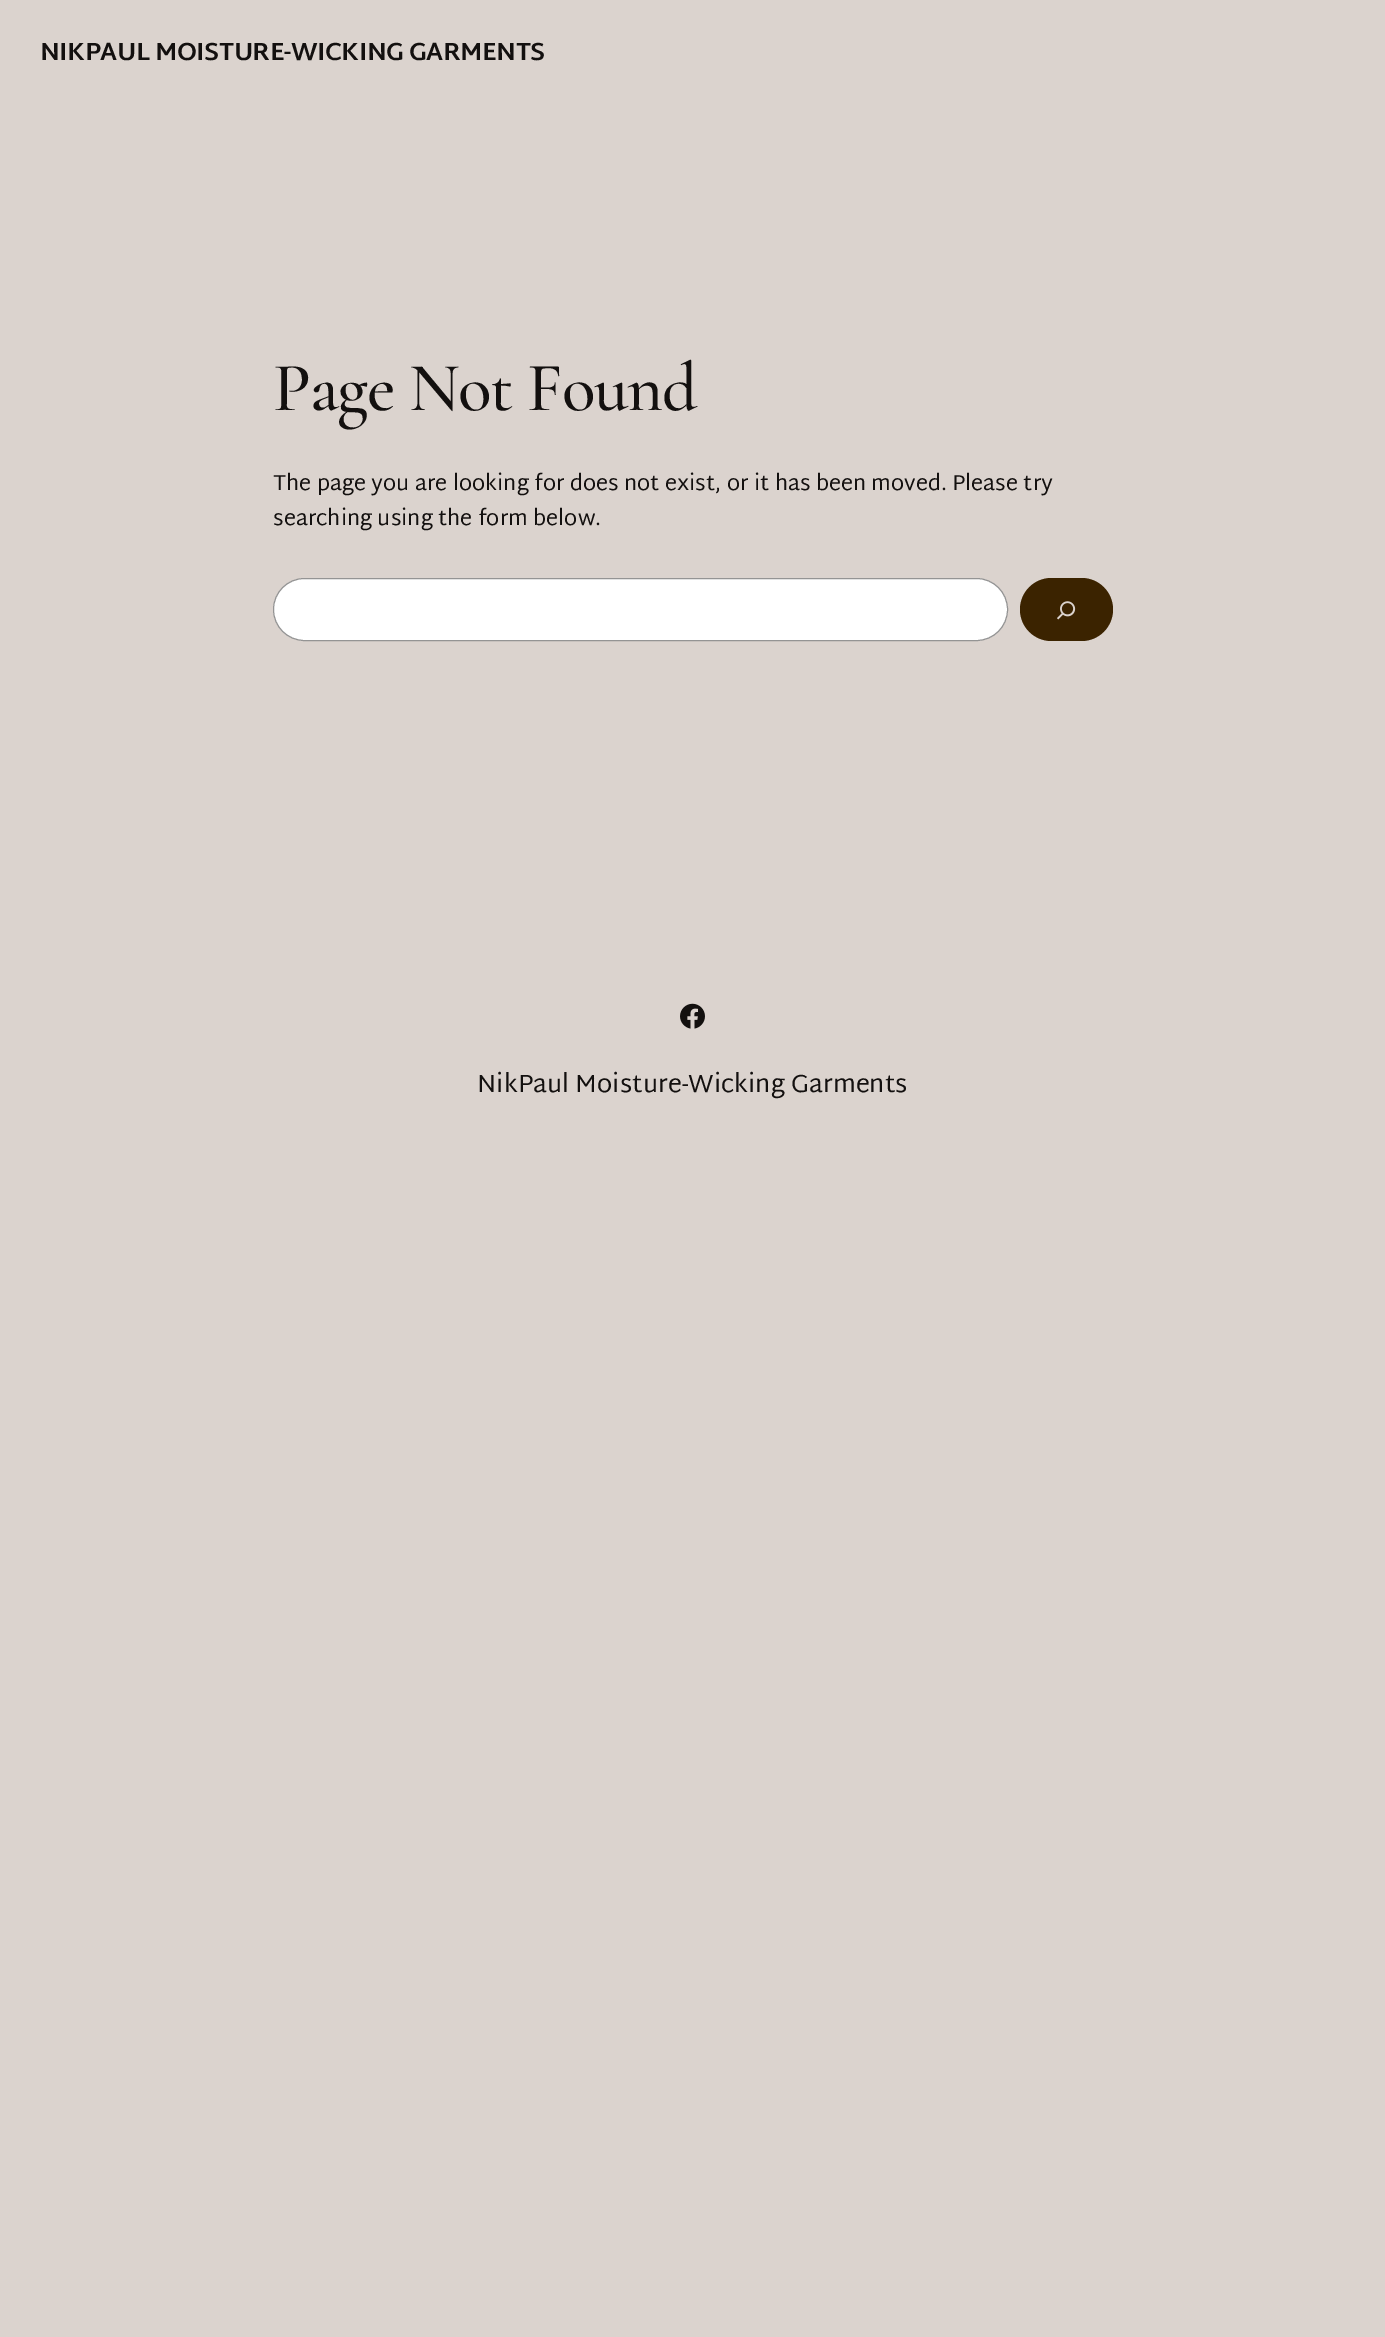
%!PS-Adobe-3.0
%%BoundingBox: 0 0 1385 2337
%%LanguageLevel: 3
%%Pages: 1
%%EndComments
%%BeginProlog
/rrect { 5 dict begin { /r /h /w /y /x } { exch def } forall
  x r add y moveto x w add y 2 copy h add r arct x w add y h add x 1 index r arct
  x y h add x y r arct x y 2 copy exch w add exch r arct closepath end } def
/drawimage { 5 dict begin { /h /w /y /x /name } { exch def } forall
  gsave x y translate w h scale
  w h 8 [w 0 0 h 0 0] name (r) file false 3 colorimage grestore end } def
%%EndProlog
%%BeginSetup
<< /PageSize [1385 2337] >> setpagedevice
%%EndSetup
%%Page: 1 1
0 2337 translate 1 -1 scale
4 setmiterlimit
0.859 0.827 0.808 setrgbcolor
0 0 1385 2337 rectfill
1 setgray
273.5 578.5 734 62 31 rrect gsave fill grestore
0.58 setgray
stroke
0.231 0.137 0 setrgbcolor
1020 578 93 63 31.5 rrect fill
(images/1.raw) 1057 601 19 19 drawimage
(images/2.raw) 680 1003 25 26 drawimage
/MartelSans-Bold [25 0 0 -25 0 0] selectfont
0.075 0.063 0.059 setrgbcolor
40 60 moveto -0.5 0 (NIKPAUL MOISTURE-WICKING GARMENTS) ashow
/CormorantGaramond-Light [69.5 0 0 -69.5 0 0] selectfont
273 410 moveto -1.4 0 (Page Not Found) ashow
/MartelSans-Regular [21.6 0 0 -21.6 0 0] selectfont
273 490 moveto (The page you are looking for does not exist, or it has been moved. Please try) show
273 525 moveto (searching using the form below.) show
/MartelSans-Regular [25 0 0 -25 0 0] selectfont
477 1092 moveto (NikPaul Moisture-Wicking Garments) show
showpage
%%EOF
